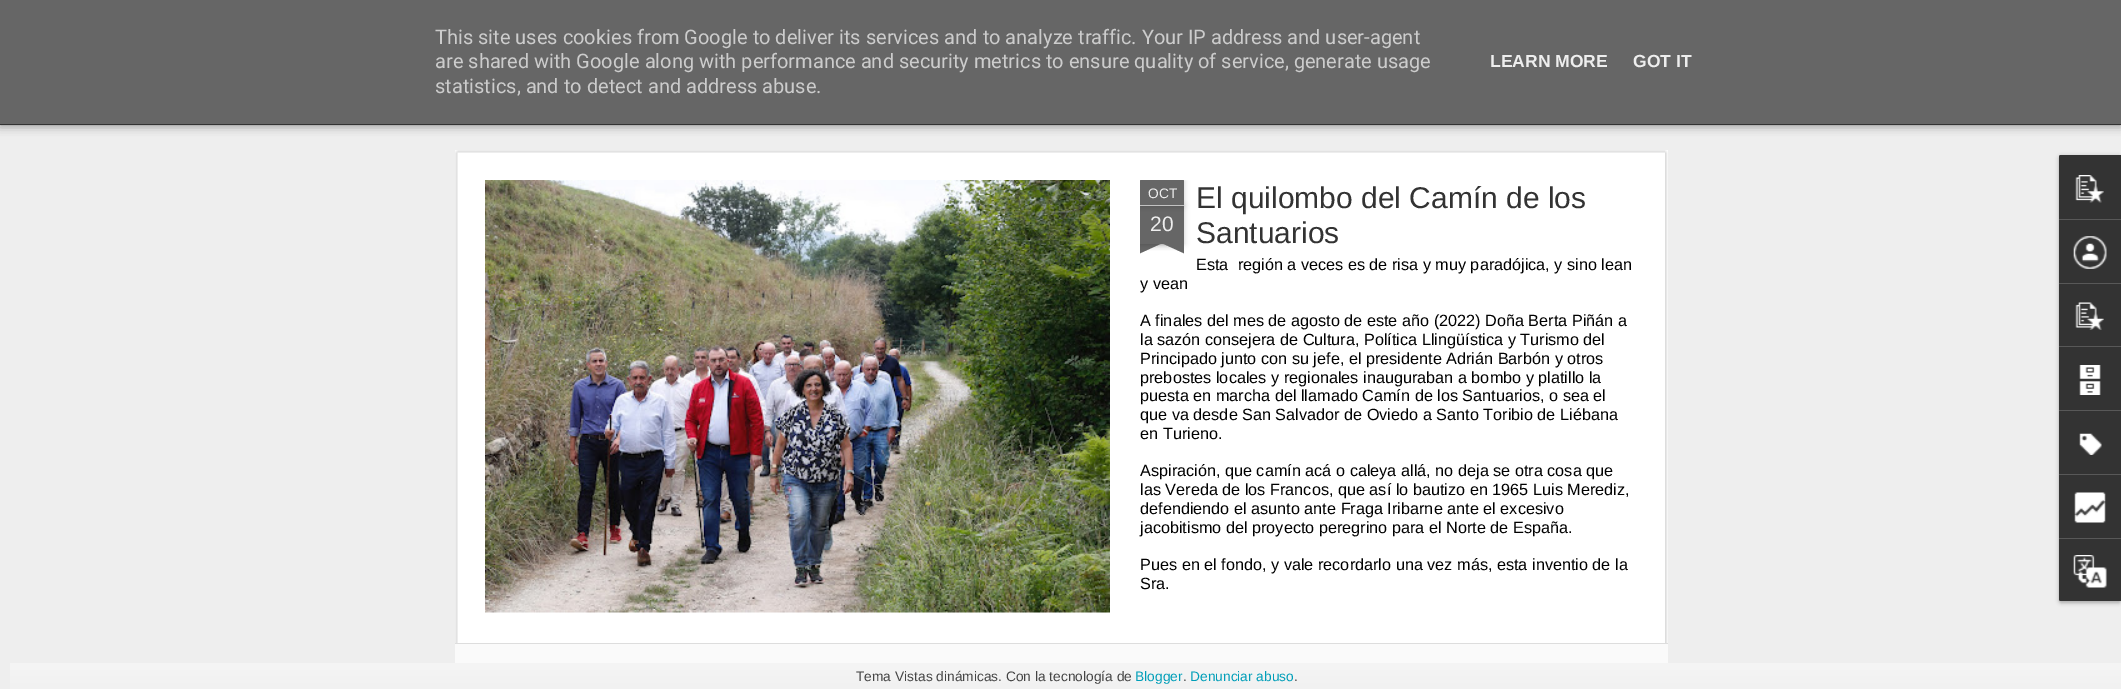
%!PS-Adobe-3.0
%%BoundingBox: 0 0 2121 689
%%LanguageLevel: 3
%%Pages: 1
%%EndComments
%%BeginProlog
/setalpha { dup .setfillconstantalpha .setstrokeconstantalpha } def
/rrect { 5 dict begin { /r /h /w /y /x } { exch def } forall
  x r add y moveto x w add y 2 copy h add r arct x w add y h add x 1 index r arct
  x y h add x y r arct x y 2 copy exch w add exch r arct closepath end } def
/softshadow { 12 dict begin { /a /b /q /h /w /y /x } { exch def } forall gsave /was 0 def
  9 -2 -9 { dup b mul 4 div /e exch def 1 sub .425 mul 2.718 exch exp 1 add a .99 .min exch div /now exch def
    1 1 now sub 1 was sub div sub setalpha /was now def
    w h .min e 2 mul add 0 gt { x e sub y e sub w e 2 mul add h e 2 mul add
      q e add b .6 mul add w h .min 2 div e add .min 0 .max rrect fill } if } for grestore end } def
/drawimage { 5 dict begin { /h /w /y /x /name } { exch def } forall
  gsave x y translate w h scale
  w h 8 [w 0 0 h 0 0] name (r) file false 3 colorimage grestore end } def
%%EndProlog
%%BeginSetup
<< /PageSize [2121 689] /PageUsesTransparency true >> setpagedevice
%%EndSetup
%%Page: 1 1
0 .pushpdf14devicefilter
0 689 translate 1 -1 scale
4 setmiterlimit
0.933 setgray
0 0 2121 689 rectfill
0 setgray
0 81 2121 44 0 5 0.5 softshadow
0.4 setgray
0 0 2121 124 rectfill
0.2 setgray
0 124 2121 1 rectfill
1 setgray
455 150 1213 493 rectfill
(images/1.raw) 455 150 1213 493 drawimage
(images/2.raw) 485 180 625 433 drawimage
gsave
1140 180 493 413 rectclip
0 setgray
1140 206 44 38 0 3 0.2 softshadow
grestore
0.4 setgray
1140 206 44 38 rectfill
gsave
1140 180 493 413 rectclip
0 setgray
1140 180 44 26 1 3 0.2 softshadow
grestore
newpath 1141 180 moveto 1183 180 lineto 1183.5 180 1184 180.5 1184 181 curveto 1184 206 lineto 1140 206 lineto 1140 181 lineto 1140 180.5 1140.5 180 1141 180 curveto closepath fill
0.761 setgray
1140 205 44 1 rectfill
gsave
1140 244 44 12 rectclip
0 setgray
1129 231 62 13 0 3 0.2 softshadow
grestore
gsave
1140 244 44 12 rectclip
0.4 setgray
newpath 1129 245 moveto 1186 219 lineto 1191 230 lineto 1134 256 lineto closepath fill
grestore
gsave
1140 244 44 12 rectclip
0 setgray
1133 231 62 13 0 3 0.2 softshadow
grestore
gsave
1140 244 44 12 rectclip
0.4 setgray
newpath 1138 219 moveto 1195 245 lineto 1190 256 lineto 1133 230 lineto closepath fill
grestore
0.98 setgray
455 644 1213 19 rectfill
0.867 setgray
455 643 1213 1 rectfill
0 setgray
2059 156 62 447 2.5 2 0.3 softshadow
0.2 setgray
newpath 2061.5 155 moveto 2121 155 lineto 2121 601 lineto 2061.5 601 lineto 2060 601 2059 600 2059 598.5 curveto 2059 157.5 lineto 2059 156 2060 155 2061.5 155 curveto closepath fill
newpath 2061.5 155 moveto 2121 155 lineto 2121 219 lineto 2059 219 lineto 2059 157.5 lineto 2059 156 2060 155 2061.5 155 curveto closepath fill
(images/3.raw) 2075 175 29 28 drawimage
0.345 setgray
2059 219 62 1 rectfill
(images/4.raw) 2073 236 34 33 drawimage
2059 283 62 1 rectfill
(images/5.raw) 2075 302 29 28 drawimage
2059 346 62 1 rectfill
(images/6.raw) 2079 365 22 30 drawimage
2059 410 62 1 rectfill
(images/7.raw) 2079 433 23 22 drawimage
2059 474 62 1 rectfill
(images/8.raw) 2074 492 32 31 drawimage
0.2 setgray
newpath 2059 538 moveto 2121 538 lineto 2121 601 lineto 2061.5 601 lineto 2060 601 2059 600 2059 598.5 curveto closepath fill
0.345 setgray
2059 538 62 1 rectfill
(images/9.raw) 2073 555 34 33 drawimage
gsave newpath 10 663 moveto 2121 663 lineto 2121 689 lineto 10 689 lineto closepath clip newpath
<< /ShadingType 2 /ColorSpace /DeviceRGB /Coords [1077 662 1077 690] /Extend [true true] /Function << /FunctionType 2 /Domain [0 1] /C0 [0.961 0.961 0.961] /C1 [0.945 0.945 0.945] /N 1 >> >> shfill grestore
/Roboto-Regular [20 0 0 -20 0 0] selectfont
0.8 setgray
435 44 moveto (This site uses cookies from Google to deliver its services and to analyze traffic. Your IP address and user-agent) show
435 68 moveto (are shared with Google along with performance and security metrics to ensure quality of service, generate usage) show
435 93 moveto (statistics, and to detect and address abuse.) show
/LiberationSans-Bold [17.5 0 0 -17.5 0 0] selectfont
0.933 setgray
1490 67 moveto (LEARN MORE) show
1633 67 moveto (GOT IT) show
/LiberationSans-Regular [13.75 0 0 -13.75 0 0] selectfont
1148 198 moveto (OCT) show
/LiberationSans-Regular [21 0 0 -21 0 0] selectfont
1150 231 moveto (20) show
/LiberationSans-Regular [30 0 0 -30 0 0] selectfont
0.2 setgray
1196 208 moveto (El quilombo del Camín de los) show
1196 243 moveto (Santuarios) show
/LiberationSans-Regular [16.25 0 0 -16.25 0 0] selectfont
0 setgray
1196 270 moveto (Esta  región a veces es de risa y muy paradójica, y sino lean) show
1140 289 moveto (y vean) show
1140 326 moveto (A finales del mes de agosto de este año \(2022\) Doña Berta Piñán a) show
1140 345 moveto (la sazón consejera de Cultura, Política Llingüística y Turismo del) show
1140 364 moveto (Principado junto con su jefe, el presidente Adrián Barbón y otros) show
1140 383 moveto (prebostes locales y regionales inauguraban a bombo y platillo la) show
1140 401 moveto (puesta en marcha del llamado Camín de los Santuarios, o sea el) show
1140 420 moveto (que va desde San Salvador de Oviedo a Santo Toribio de Liébana) show
1140 439 moveto (en Turieno.) show
1140 476 moveto (Aspiración, que camín acá o caleya allá, no deja se otra cosa que) show
1140 495 moveto (las Vereda de los Francos, que así lo bautizo en 1965 Luis Merediz,) show
1140 514 moveto (defendiendo el asunto ante Fraga Iribarne ante el excesivo) show
1140 533 moveto (jacobitismo del proyecto peregrino para el Norte de España.) show
1140 570 moveto (Pues en el fondo, y vale recordarlo una vez más, esta inventio de la) show
1140 589 moveto (Sra.) show
/LiberationSans-Regular [13.75 0 0 -13.75 0 0] selectfont
0.267 setgray
856 681 moveto (Tema Vistas dinámicas. Con la tecnología de) show
0 0.62 0.722 setrgbcolor
1135 681 moveto (Blogger) show
0.267 setgray
1183 681 moveto (.) show
0 0.62 0.722 setrgbcolor
1190 681 moveto (Denunciar abuso) show
0.267 setgray
1294 681 moveto (.) show
.poppdf14devicefilter showpage
%%EOF
